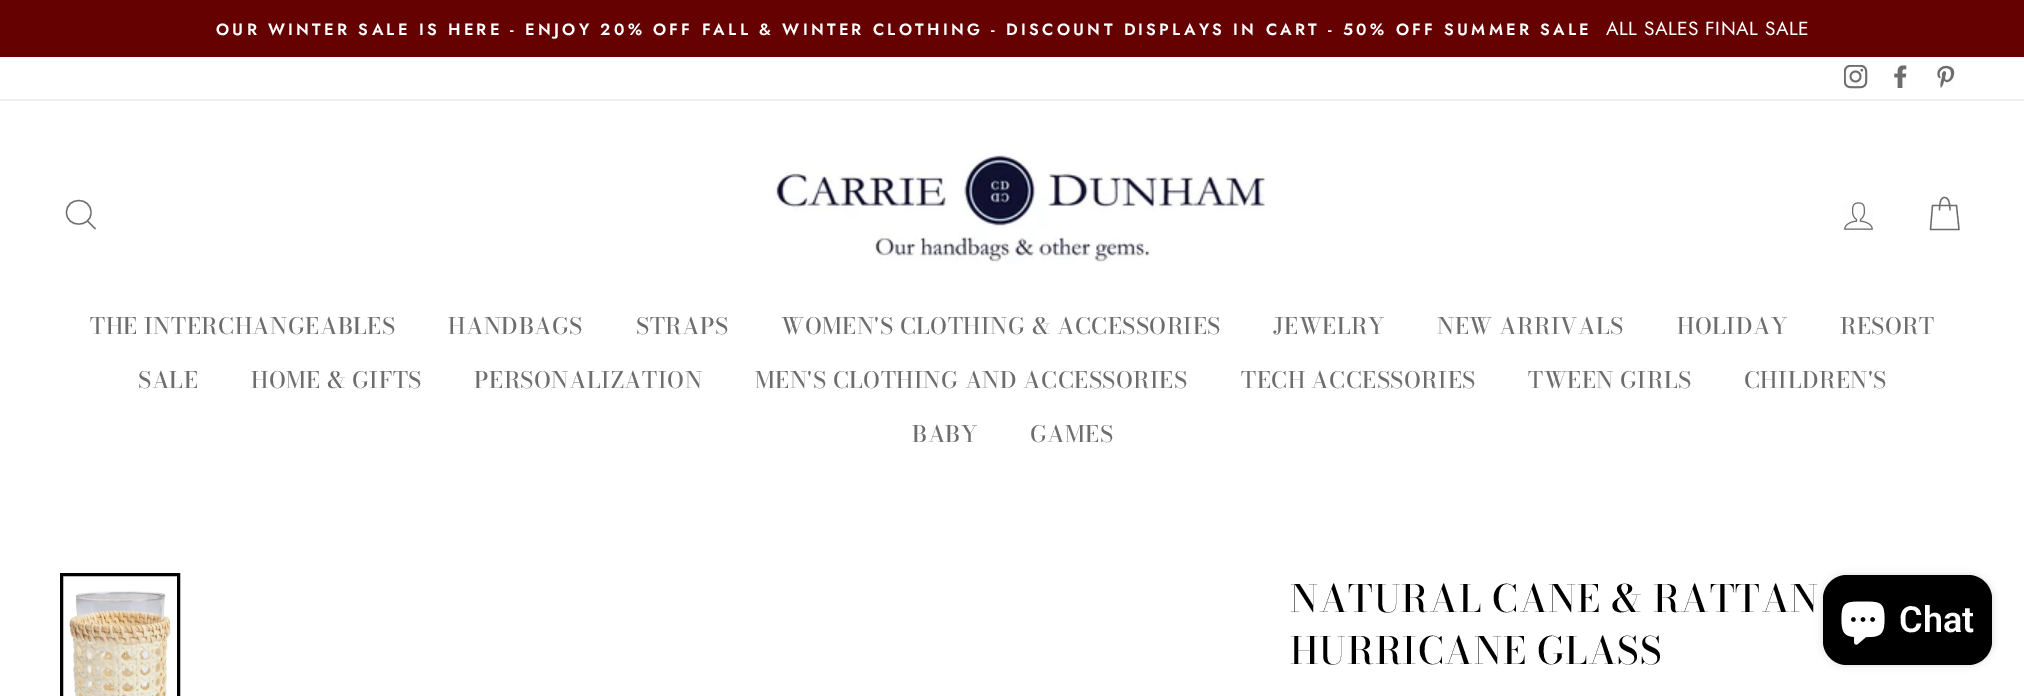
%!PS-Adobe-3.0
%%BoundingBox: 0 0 2024 696
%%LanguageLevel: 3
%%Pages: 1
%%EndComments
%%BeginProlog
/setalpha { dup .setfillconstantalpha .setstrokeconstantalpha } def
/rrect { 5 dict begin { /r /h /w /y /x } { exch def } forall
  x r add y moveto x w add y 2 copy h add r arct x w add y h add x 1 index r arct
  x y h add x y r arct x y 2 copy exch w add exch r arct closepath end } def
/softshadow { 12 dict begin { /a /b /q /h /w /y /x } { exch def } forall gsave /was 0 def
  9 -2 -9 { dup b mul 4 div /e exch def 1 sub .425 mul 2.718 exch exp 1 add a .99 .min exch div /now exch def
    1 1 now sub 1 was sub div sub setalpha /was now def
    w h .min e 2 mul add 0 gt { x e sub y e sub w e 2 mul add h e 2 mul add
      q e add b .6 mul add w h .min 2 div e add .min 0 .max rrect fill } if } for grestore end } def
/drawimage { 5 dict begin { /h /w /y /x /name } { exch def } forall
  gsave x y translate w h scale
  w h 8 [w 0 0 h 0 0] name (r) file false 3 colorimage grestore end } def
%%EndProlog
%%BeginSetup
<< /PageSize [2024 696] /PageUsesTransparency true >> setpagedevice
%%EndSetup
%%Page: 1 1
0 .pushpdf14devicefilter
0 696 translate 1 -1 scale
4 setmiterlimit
1 setgray
0 0 2024 696 rectfill
0.4 0.004 0.004 setrgbcolor
0 0 2024 57 rectfill
(images/1.raw) 1844 65 24 24 drawimage
(images/2.raw) 1894 65 13 23 drawimage
(images/3.raw) 1937 65 18 23 drawimage
0.937 setgray
0 99 2024 2 rectfill
0.427 setgray
1.3 setlinewidth
newpath 91 212.5 moveto 91 228 66.5 228 66.5 212.5 curveto 66.5 196.5 91 196.5 91 212.5 curveto closepath 95.5 229 moveto 87.5 221 lineto stroke
(images/4.raw) 773 155 492 109 drawimage
(images/5.raw) 1844 202 29 28 drawimage
newpath 1939.5 210.5 moveto 1939.5 200 1941.5 197.5 1944.5 197.5 curveto 1947.5 197.5 1950 200 1950 210.5 curveto 1932.5 205.5 moveto 1956.5 205.5 lineto 1959 229.5 lineto 1930.5 229.5 lineto closepath stroke
0 setgray
3 setlinewidth
61.5 574.5 117 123 rectstroke
(images/6.raw) 69 590 103 106 drawimage
1823 575 169 90 24 4 0.15 softshadow
1823 575 169 90 24 rrect fill
(images/7.raw) 1841 601 44 44 drawimage
/Jost-SemiBold [16.25 0 0 -16.25 0 0] selectfont
1 setgray
216 35 moveto 3.25 0 (OUR WINTER SALE IS HERE - ENJOY 20% OFF FALL & WINTER CLOTHING - DISCOUNT DISPLAYS IN CART - 50% OFF SUMMER SALE) ashow
/Jost-Regular [19.1 0 0 -19.1 0 0] selectfont
1606 35 moveto 0.55 0 (ALL SALES FINAL SALE) ashow
/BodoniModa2-Medium [22.5 0 0 -22.5 0 0] selectfont
0.427 setgray
90 334 moveto 0.55 0 (THE INTERCHANGEABLES) ashow
448 334 moveto 0.55 0 (HANDBAGS) ashow
636 334 moveto 0.55 0 (STRAPS) ashow
781 334 moveto 0.55 0 (WOMEN'S CLOTHING & ACCESSORIES) ashow
1273 334 moveto 0.55 0 (JEWELRY) ashow
1437 334 moveto 0.55 0 (NEW ARRIVALS) ashow
1677 334 moveto 0.55 0 (HOLIDAY) ashow
1840 334 moveto 0.55 0 (RESORT) ashow
138 388 moveto 0.55 0 (SALE) ashow
251 388 moveto 0.55 0 (HOME & GIFTS) ashow
474 388 moveto 0.55 0 (PERSONALIZATION) ashow
755 388 moveto 0.55 0 (MEN'S CLOTHING AND ACCESSORIES) ashow
1241 388 moveto 0.55 0 (TECH ACCESSORIES) ashow
1528 388 moveto 0.55 0 (TWEEN GIRLS) ashow
1744 388 moveto 0.55 0 (CHILDREN'S) ashow
912 442 moveto 0.55 0 (BABY) ashow
1030 442 moveto 0.55 0 (GAMES) ashow
/BodoniModa-Medium [37.4 0 0 -37.4 0 0] selectfont
0 setgray
1290 612 moveto 0.9 0 (NATURAL CANE & RATTAN) ashow
1290 664 moveto 0.9 0 (HURRICANE GLASS) ashow
/Roboto-SemiBold [36 0 0 -36 0 0] selectfont
1 setgray
1899 632 moveto (Chat) show
.poppdf14devicefilter showpage
%%EOF
